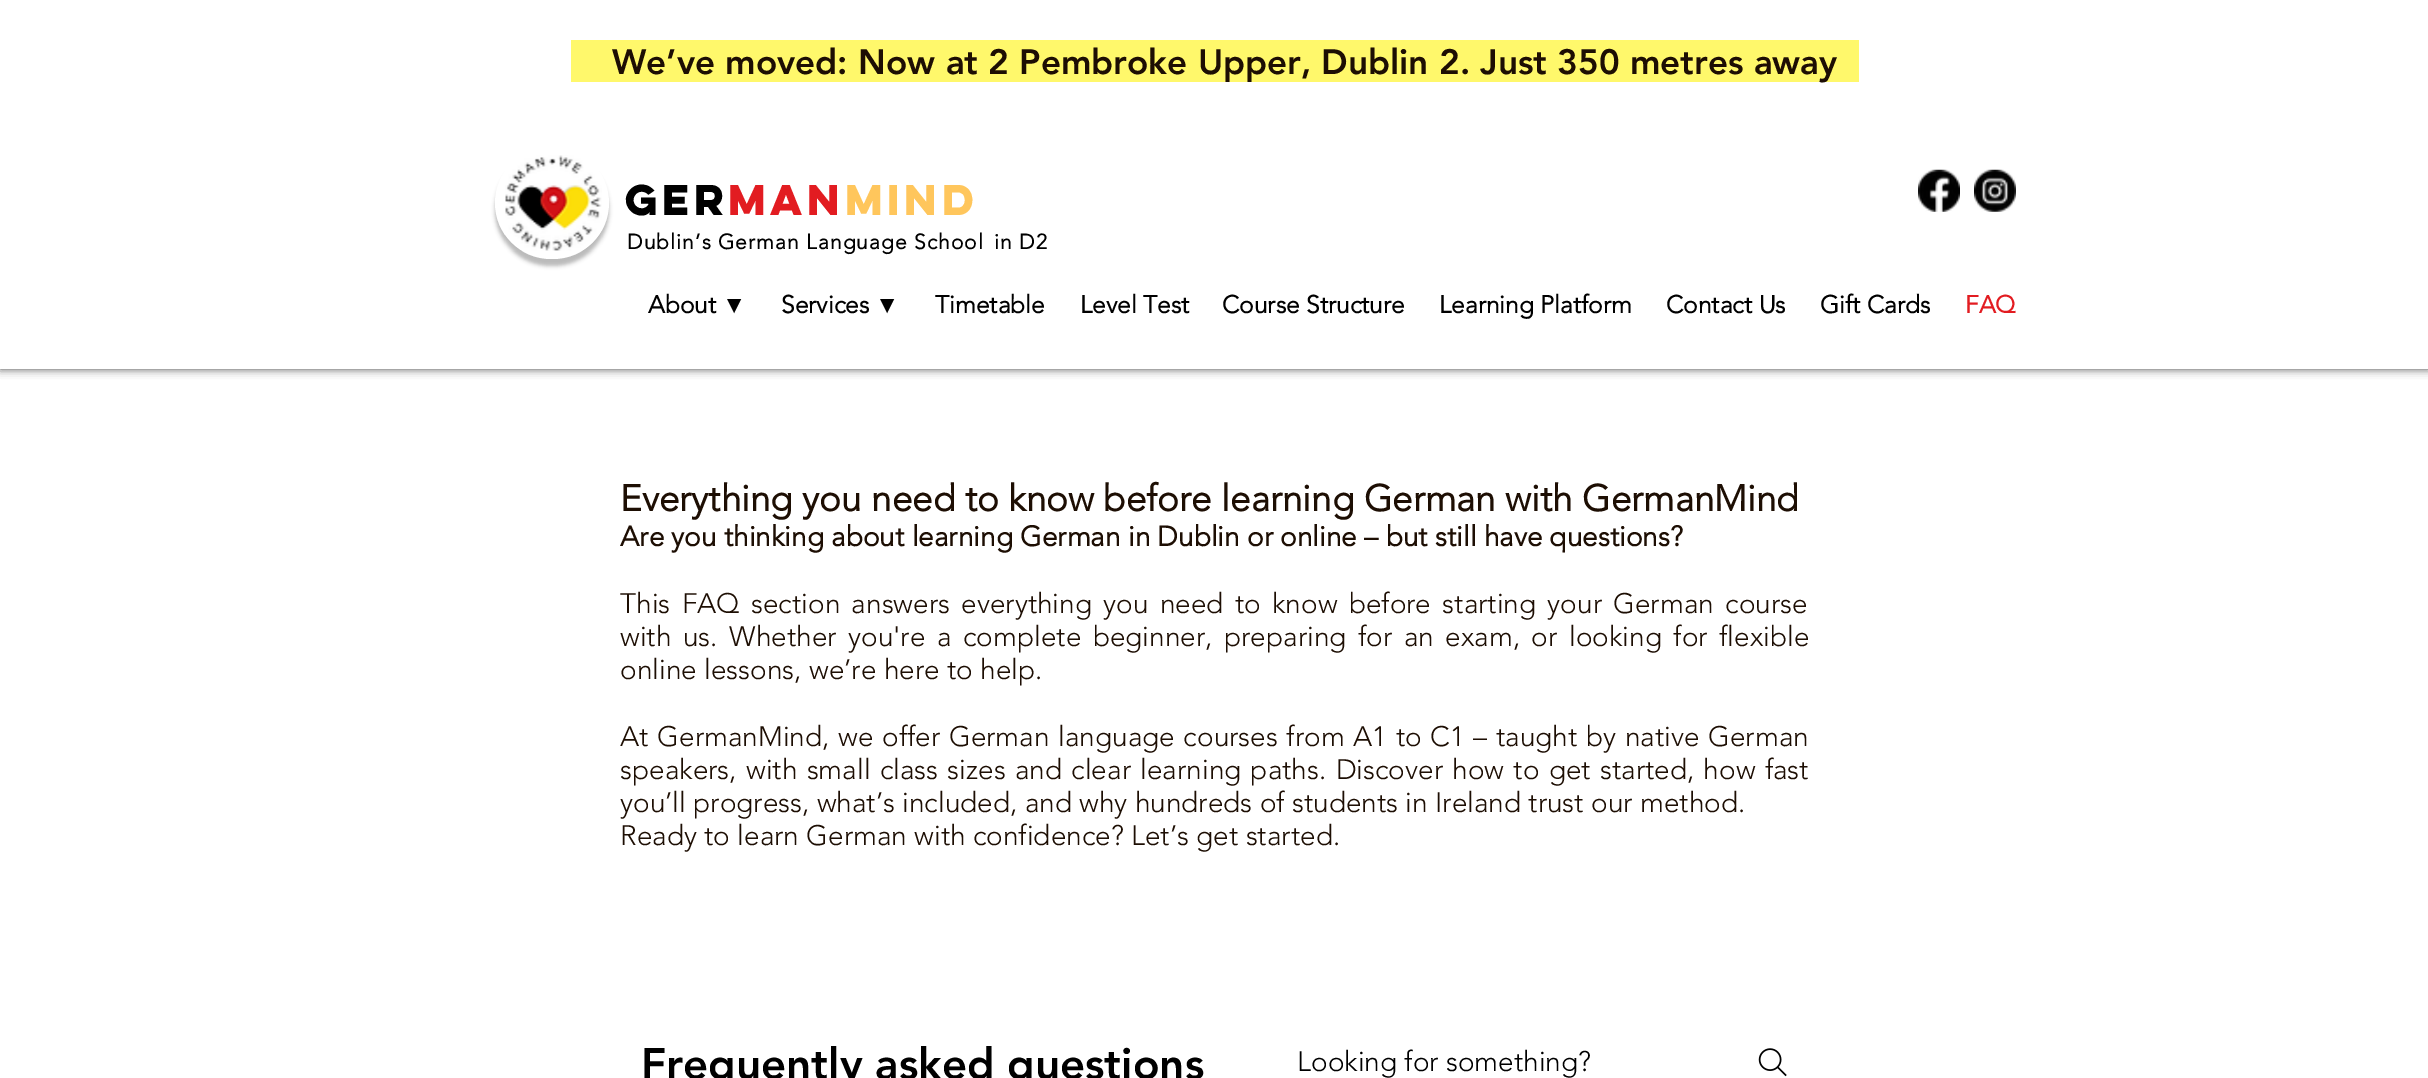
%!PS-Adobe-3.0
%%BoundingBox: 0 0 2428 1078
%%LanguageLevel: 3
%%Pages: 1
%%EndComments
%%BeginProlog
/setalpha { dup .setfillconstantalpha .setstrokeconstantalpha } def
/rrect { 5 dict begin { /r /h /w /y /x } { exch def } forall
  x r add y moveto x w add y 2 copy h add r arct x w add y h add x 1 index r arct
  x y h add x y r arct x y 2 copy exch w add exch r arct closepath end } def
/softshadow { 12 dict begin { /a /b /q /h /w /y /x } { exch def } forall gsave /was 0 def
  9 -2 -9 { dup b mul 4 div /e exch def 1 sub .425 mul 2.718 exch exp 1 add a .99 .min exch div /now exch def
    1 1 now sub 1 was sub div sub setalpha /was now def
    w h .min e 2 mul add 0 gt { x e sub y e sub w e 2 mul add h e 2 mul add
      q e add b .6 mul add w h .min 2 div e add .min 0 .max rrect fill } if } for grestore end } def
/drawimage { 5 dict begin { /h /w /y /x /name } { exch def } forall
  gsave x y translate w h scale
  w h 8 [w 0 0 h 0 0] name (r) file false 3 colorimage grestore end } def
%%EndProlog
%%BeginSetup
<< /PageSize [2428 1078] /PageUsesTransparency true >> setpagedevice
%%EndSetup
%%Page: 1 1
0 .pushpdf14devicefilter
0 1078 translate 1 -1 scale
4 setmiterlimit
1 setgray
0 0 2428 1078 rectfill
0 setgray
0 0 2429 369 0 4.5 0.7 softshadow
1 setgray
0 0 2428 369 rectfill
1 0.973 0.42 setrgbcolor
571 40 1288 42 rectfill
0 setgray
495 154 114 112 56 2 0.27 softshadow
1 setgray
495 147 114 112 56 rrect fill
(images/1.raw) 505 155 97 96 drawimage
(images/2.raw) 1918 169 42 43 drawimage
(images/3.raw) 1974 169 42 43 drawimage
(images/4.raw) 1758 1048 29 29 drawimage
/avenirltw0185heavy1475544-Black [35 0 0 -35 0 0] selectfont
0.114 0.055 0.012 setrgbcolor
612 74 moveto (We’ve moved: Now at 2 Pembroke Upper, Dublin 2. Just 350 metres away) show
/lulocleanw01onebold-Bold [38.5 0 0 -38.5 0 0] selectfont
0 setgray
625 215 moveto -4 0 (Ger) ashow
0.886 0.11 0.129 setrgbcolor
728 215 moveto -4 0 (man) ashow
1 0.776 0.361 setrgbcolor
845 215 moveto -4 0 (mind) ashow
/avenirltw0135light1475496-Bold [21 0 0 -21 0 0] selectfont
0 setgray
627 249 moveto 1.05 0 (Dublin’s German Language School) ashow
994 249 moveto 1.05 0 (in D2) ashow
/avenirltw0135light1475496-Bold [24.5 0 0 -24.5 0 0] selectfont
648 313 moveto (About) show
/LiberationSans-Bold [24.5 0 0 -24.5 0 0] selectfont
722 313 moveto (▼) show
/avenirltw0135light1475496-Bold [24.5 0 0 -24.5 0 0] selectfont
781 313 moveto (Services) show
/LiberationSans-Bold [24.5 0 0 -24.5 0 0] selectfont
875 313 moveto (▼) show
/avenirltw0135light1475496-Bold [24.5 0 0 -24.5 0 0] selectfont
935 313 moveto (Timetable) show
1080 313 moveto (Level Test) show
1222 313 moveto (Course Structure) show
1439 313 moveto (Learning Platform) show
1666 313 moveto (Contact Us) show
1820 313 moveto (Gift Cards) show
0.886 0.11 0.129 setrgbcolor
1965 313 moveto (FAQ) show
/avenirltw0135light1475496-Bold [36.75 0 0 -36.75 0 0] selectfont
0.114 0.055 0.012 setrgbcolor
620 511 moveto (Everything you need to know before learning German with GermanMind) show
/avenirltw0135light1475496-Bold [28 0 0 -28 0 0] selectfont
620 546 moveto (Are you thinking about learning German in Dublin or online – but still have questions?) show
/avenirltw0135light1475496-Light [28 0 0 -28 0 0] selectfont
620 613 moveto 4 0 32 (This FAQ section answers everything you need to know before starting your German course) widthshow
620 646 moveto 4.25 0 32 (with us. Whether you're a complete beginner, preparing for an exam, or looking for flexible) widthshow
620 679 moveto (online lessons, we’re here to help.) show
620 746 moveto 1.4 0 32 (At GermanMind, we offer German language courses from A1 to C1 – taught by native German) widthshow
620 779 moveto 2 0 32 (speakers, with small class sizes and clear learning paths. Discover how to get started, how fast) widthshow
620 812 moveto (you’ll progress, what’s included, and why hundreds of students in Ireland trust our method.) show
620 845 moveto (Ready to learn German with confidence? Let’s get started.) show
/avenirltw0185heavy1475544-Black [43.75 0 0 -43.75 0 0] selectfont
0 setgray
641 1079 moveto (Frequently asked questions) show
/avenirltw0135light1475496-Light [28 0 0 -28 0 0] selectfont
1297 1071 moveto (Looking for something?) show
.poppdf14devicefilter showpage
%%EOF
